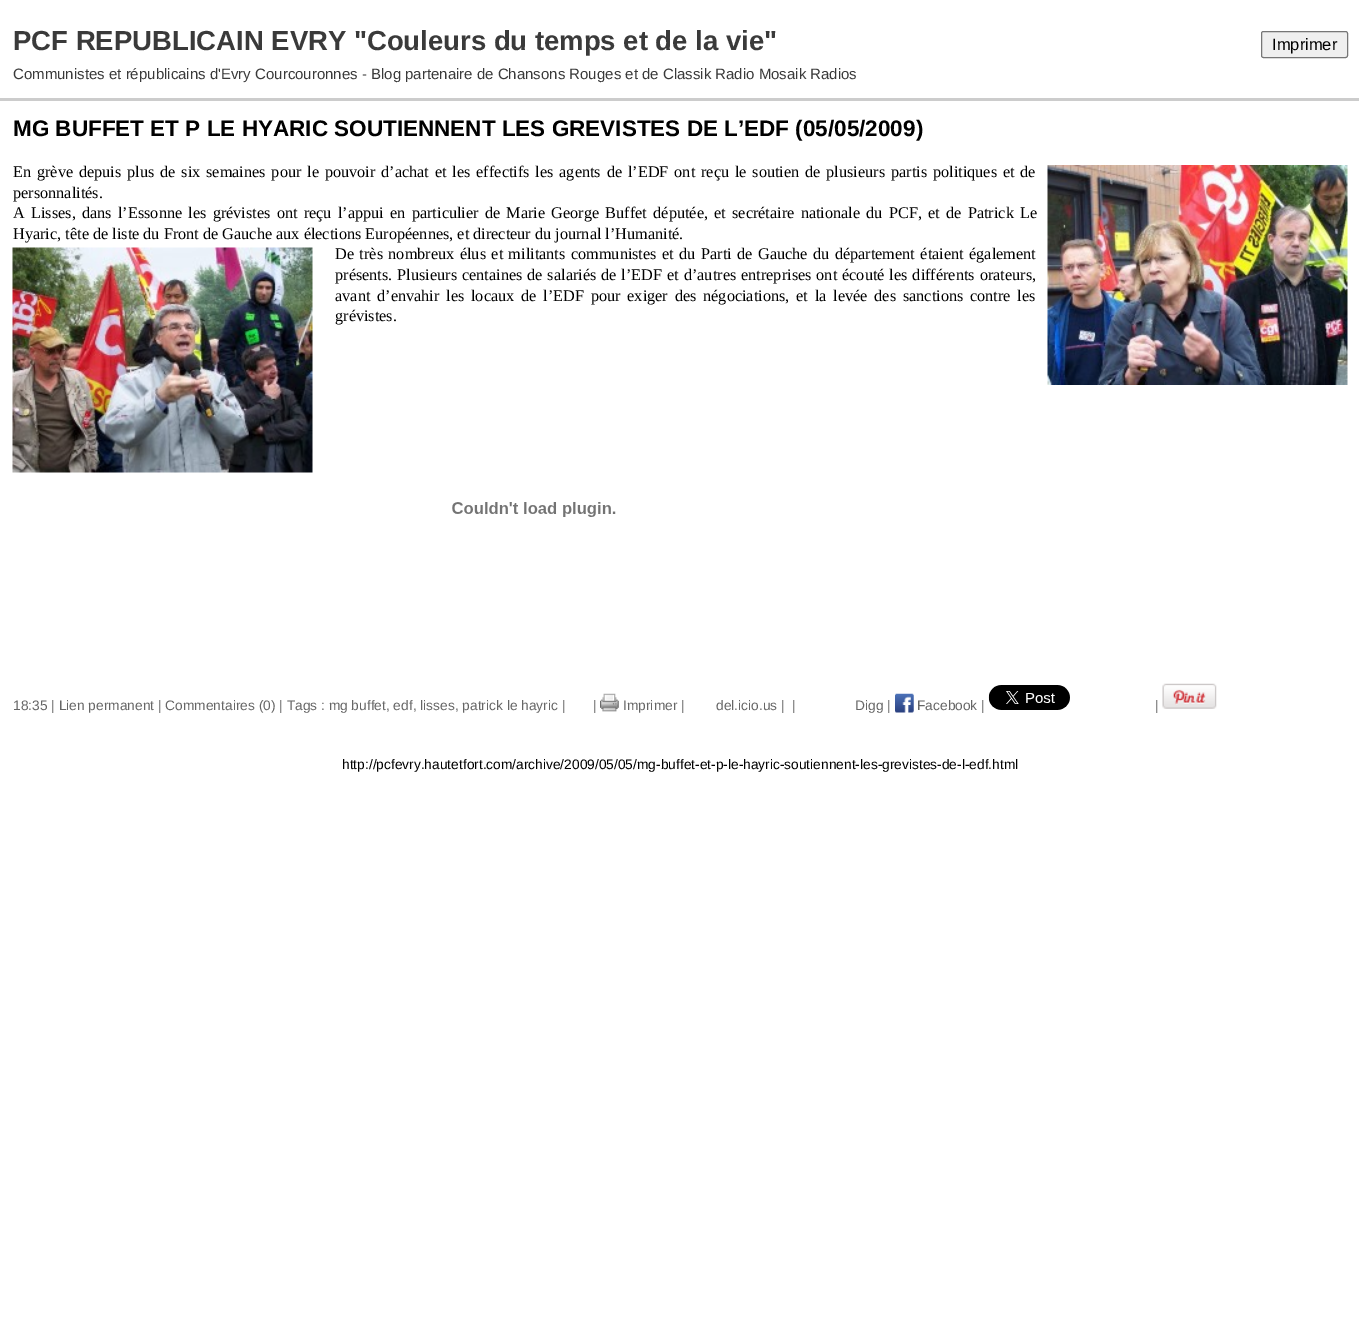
%!PS-Adobe-3.0
%%BoundingBox: 0 0 1359 1344
%%LanguageLevel: 3
%%Pages: 1
%%EndComments
%%BeginProlog
/rrect { 5 dict begin { /r /h /w /y /x } { exch def } forall
  x r add y moveto x w add y 2 copy h add r arct x w add y h add x 1 index r arct
  x y h add x y r arct x y 2 copy exch w add exch r arct closepath end } def
/drawimage { 5 dict begin { /h /w /y /x /name } { exch def } forall
  gsave x y translate w h scale
  w h 8 [w 0 0 h 0 0] name (r) file false 3 colorimage grestore end } def
%%EndProlog
%%BeginSetup
<< /PageSize [1359 1344] >> setpagedevice
%%EndSetup
%%Page: 1 1
0 1344 translate 1 -1 scale
4 setmiterlimit
1 setgray
0 0 1359 1344 rectfill
0.8 setgray
0 98 1359 3 rectfill
0.937 setgray
1261.5 31.5 86 26 2 rrect gsave fill grestore
0.463 setgray
stroke
(images/1.raw) 1047 165 301 220 drawimage
(images/2.raw) 12 247 301 226 drawimage
(images/3.raw) 452 502 164 15 drawimage
(images/4.raw) 600 693 19 19 drawimage
(images/5.raw) 895 693 19 20 drawimage
(images/6.raw) 988 685 82 25 drawimage
(images/7.raw) 1162 683 55 26 drawimage
/LiberationSans-Bold [27.5 0 0 -27.5 0 0] selectfont
0.227 setgray
13 50 moveto (PCF REPUBLICAIN EVRY "Couleurs du temps et de la vie") show
/LiberationSans-Regular [16.5 0 0 -16.5 0 0] selectfont
0 setgray
1272 50 moveto (Imprimer) show
/LiberationSans-Regular [15 0 0 -15 0 0] selectfont
0.227 setgray
13 79 moveto (Communistes et républicains d'Evry Courcouronnes - Blog partenaire de Chansons Rouges et de Classik Radio Mosaik Radios) show
/LiberationSans-Bold [22.5 0 0 -22.5 0 0] selectfont
0 setgray
13 136 moveto (MG BUFFET ET P LE HYARIC SOUTIENNENT LES GREVISTES DE L’EDF \(05/05/2009\)) show
/LiberationSerif-Regular [16.25 0 0 -16.25 0 0] selectfont
13 177 moveto 1.8 0 32 (En grève depuis plus de six semaines pour le pouvoir d’achat et les effectifs les agents de l’EDF ont reçu le soutien de plusieurs partis politiques et de) widthshow
13 198 moveto (personnalités.) show
13 218 moveto 2.2 0 32 (A Lisses, dans l’Essonne les grévistes ont reçu l’appui en particulier de Marie George Buffet députée, et secrétaire nationale du PCF, et de Patrick Le) widthshow
13 239 moveto (Hyaric, tête de liste du Front de Gauche aux élections Européennes, et directeur du journal l’Humanité.) show
335 259 moveto 1.4 0 32 (De très nombreux élus et militants communistes et du Parti de Gauche du département étaient également) widthshow
335 280 moveto 0.9 0 32 (présents. Plusieurs centaines de salariés de l’EDF et d’autres entreprises ont écouté les différents orateurs,) widthshow
335 301 moveto 2.75 0 32 (avant d’envahir les locaux de l’EDF pour exiger des négociations, et la levée des sanctions contre les) widthshow
335 321 moveto (grévistes.) show
/LiberationSans-Regular [13.75 0 0 -13.75 0 0] selectfont
0.4 setgray
13 710 moveto (18:35 | Lien permanent | Commentaires \(0\) | Tags : mg buffet, edf, lisses, patrick le hayric |) show
593 710 moveto (|) show
623 710 moveto (Imprimer |) show
716 710 moveto (del.icio.us |) show
792 710 moveto (|) show
855 710 moveto (Digg |) show
917 710 moveto (Facebook |) show
1155 710 moveto (|) show
0 setgray
342 769 moveto (http://pcfevry.hautetfort.com/archive/2009/05/05/mg-buffet-et-p-le-hayric-soutiennent-les-grevistes-de-l-edf.html) show
showpage
%%EOF
